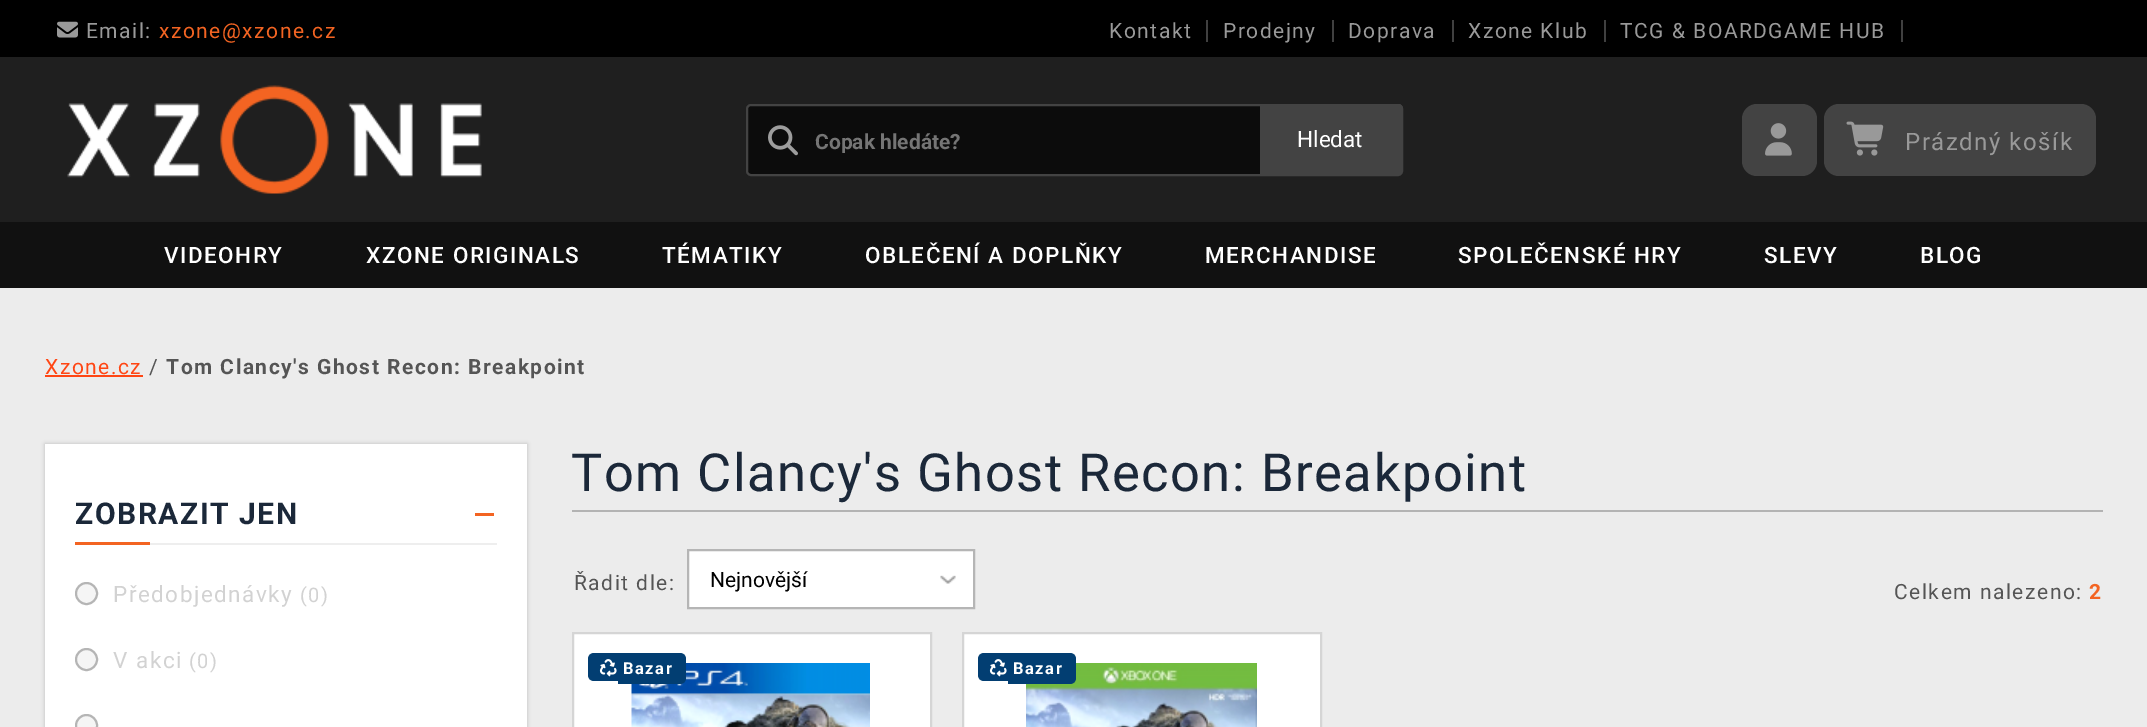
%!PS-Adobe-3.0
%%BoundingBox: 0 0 2147 727
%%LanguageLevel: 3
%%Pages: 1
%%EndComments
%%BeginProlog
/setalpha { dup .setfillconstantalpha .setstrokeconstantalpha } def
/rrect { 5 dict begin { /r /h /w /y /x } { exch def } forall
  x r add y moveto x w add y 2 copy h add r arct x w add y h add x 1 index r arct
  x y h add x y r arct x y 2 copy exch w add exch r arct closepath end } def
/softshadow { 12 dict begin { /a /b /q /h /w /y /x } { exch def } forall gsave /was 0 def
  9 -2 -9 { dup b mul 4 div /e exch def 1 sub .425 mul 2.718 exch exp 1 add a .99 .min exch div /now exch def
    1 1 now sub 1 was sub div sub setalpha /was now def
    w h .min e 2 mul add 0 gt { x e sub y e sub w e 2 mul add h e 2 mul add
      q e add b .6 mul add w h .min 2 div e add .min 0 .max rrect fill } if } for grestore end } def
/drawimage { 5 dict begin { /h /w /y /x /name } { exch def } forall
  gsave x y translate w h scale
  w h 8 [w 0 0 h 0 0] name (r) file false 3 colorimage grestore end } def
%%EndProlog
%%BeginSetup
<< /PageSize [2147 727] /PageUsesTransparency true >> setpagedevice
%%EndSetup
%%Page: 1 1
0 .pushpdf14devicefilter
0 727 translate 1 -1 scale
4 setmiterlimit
0.925 setgray
0 0 2147 727 rectfill
0 setgray
0 0 2147 57 rectfill
(images/1.raw) 57 21 21 17 drawimage
0.251 setgray
1206 20 2 22 rectfill
1332 20 2 22 rectfill
1452 20 2 22 rectfill
1604 20 2 22 rectfill
1901 20 2 22 rectfill
0.122 setgray
0 57 2147 165 rectfill
(images/2.raw) 67 85 415 109 drawimage
0.047 setgray
747 105 655 70 4 rrect gsave fill grestore
0.263 setgray
2 setlinewidth
stroke
(images/3.raw) 768 125 30 31 drawimage
newpath 1260 104 moveto 1398 104 lineto 1401 104 1403 106 1403 109 curveto 1403 169 lineto 1403 172 1401 174 1398 174 curveto 1260 174 lineto closepath fill
newpath 1260 104 moveto 1398 104 lineto 1400 104 1402 106 1402 108 curveto 1402 170 lineto 1402 172 1400 174 1398 174 curveto 1260 174 lineto closepath 1260 105 moveto 1398 105 lineto 1400 105 1401 106 1401 108 curveto 1401 170 lineto 1401 171 1400 172 1398 172 curveto 1260 172 lineto closepath eofill
1742 104 75 72 15 rrect fill
(images/4.raw) 1765 123 27 33 drawimage
1824 104 272 72 15 rrect fill
(images/5.raw) 1846 121 38 35 drawimage
0.067 setgray
0 222 2147 66 rectfill
1 0.275 0.078 setrgbcolor
45 375 98 2 rectfill
0 setgray
45 444 482 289 0 2 0.2 softshadow
1 setgray
45 444 482 283 rectfill
0.953 0.392 0.133 setrgbcolor
75 542 75 3 rectfill
0.933 setgray
150 543 347 2 rectfill
0.953 0.392 0.133 setrgbcolor
475 513 19 3 rectfill
0.961 setgray
newpath 86.5 593.5 10.5 0 360 arc closepath gsave fill grestore
0.71 setgray
stroke
0.961 setgray
newpath 86.5 659.5 10.5 0 360 arc closepath gsave fill grestore
0.71 setgray
stroke
0.961 setgray
newpath 86.5 725.5 10.5 0 360 arc closepath gsave fill grestore
0.71 setgray
stroke
0.702 setgray
572 510 1531 2 rectfill
1 setgray
689 551 284 56 rectfill
(images/6.raw) 940 575 16 9 drawimage
0.71 setgray
688 550 286 58 rectstroke
1 setgray
newpath 573 633 moveto 931 633 lineto 931 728 lineto 573 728 lineto closepath gsave fill grestore
0.835 setgray
stroke
0.008 0.243 0.447 setrgbcolor
newpath 594 653 moveto 618 653 lineto 618 681 lineto 594 681 lineto 590.5 681 588 678.5 588 675 curveto 588 659 lineto 588 655.5 590.5 653 594 653 curveto closepath fill
(images/8.raw) 631 663 239 64 drawimage
newpath 618 653 moveto 680 653 lineto 683.5 653 686 655.5 686 659 curveto 686 678 lineto 686 681.5 683.5 684 680 684 curveto 618 684 lineto closepath fill
(images/7.raw) 599 659 18 18 drawimage
1 setgray
newpath 963 633 moveto 1321 633 lineto 1321 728 lineto 963 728 lineto closepath gsave fill grestore
0.835 setgray
stroke
0.008 0.243 0.447 setrgbcolor
newpath 984 653 moveto 1008 653 lineto 1008 681 lineto 984 681 lineto 980.5 681 978 678.5 978 675 curveto 978 659 lineto 978 655.5 980.5 653 984 653 curveto closepath fill
(images/9.raw) 1026 663 231 64 drawimage
newpath 1008 653 moveto 1070 653 lineto 1073.5 653 1076 655.5 1076 659 curveto 1076 678 lineto 1076 681.5 1073.5 684 1070 684 curveto 1008 684 lineto closepath fill
(images/7.raw) 989 659 18 18 drawimage
/Roboto-Regular [21 0 0 -21 0 0] selectfont
0.6 setgray
86 38 moveto 1.5 0 (Email:) ashow
0.953 0.392 0.133 setrgbcolor
159 38 moveto 1.5 0 (xzone@xzone.cz) ashow
0.6 setgray
1109 38 moveto 1.5 0 (Kontakt) ashow
1223 38 moveto 1.5 0 (Prodejny) ashow
1348 38 moveto 1.5 0 (Doprava) ashow
1468 38 moveto 1.5 0 (Xzone Klub) ashow
1620 38 moveto 1.5 0 (TCG & BOARDGAME HUB) ashow
gsave
815 129 586 24 rectclip
/Roboto-Bold [21 0 0 -21 0 0] selectfont
0.459 setgray
815 149 moveto (Copak hledáte?) show
grestore
/Roboto-Regular [22.5 0 0 -22.5 0 0] selectfont
1 setgray
1297 147 moveto (Hledat) show
/Roboto-Regular [24 0 0 -24 0 0] selectfont
0.6 setgray
1905 150 moveto 1.5 0 (Prázdný košík) ashow
/Roboto-Medium [22.5 0 0 -22.5 0 0] selectfont
1 setgray
164 263 moveto 1.5 0 (VIDEOHRY) ashow
366 263 moveto 1.5 0 (XZONE ORIGINALS) ashow
662 263 moveto 1.5 0 (TÉMATIKY) ashow
865 263 moveto 1.5 0 (OBLEČENÍ A DOPLŇKY) ashow
1205 263 moveto 1.5 0 (MERCHANDISE) ashow
1458 263 moveto 1.5 0 (SPOLEČENSKÉ HRY) ashow
1764 263 moveto 1.5 0 (SLEVY) ashow
1920 263 moveto 1.5 0 (BLOG) ashow
/Roboto-Regular [21 0 0 -21 0 0] selectfont
1 0.275 0.078 setrgbcolor
45 374 moveto 1.5 0 (Xzone.cz) ashow
0.333 setgray
149 374 moveto 1.5 0 (/) ashow
/Roboto-Bold [21 0 0 -21 0 0] selectfont
166 374 moveto 1.5 0 (Tom Clancy's Ghost Recon: Breakpoint) ashow
/Roboto-Bold [30 0 0 -30 0 0] selectfont
0.106 0.157 0.224 setrgbcolor
75 524 moveto 1.5 0 (ZOBRAZIT JEN) ashow
/Roboto-Regular [22.5 0 0 -22.5 0 0] selectfont
0.824 setgray
113 602 moveto 1.5 0 (Předobjednávky) ashow
/Roboto-Regular [20 0 0 -20 0 0] selectfont
300 602 moveto 1.5 0 (\(0\)) ashow
/Roboto-Regular [22.5 0 0 -22.5 0 0] selectfont
113 668 moveto 1.5 0 (V akci) ashow
/Roboto-Regular [20 0 0 -20 0 0] selectfont
189 668 moveto 1.5 0 (\(0\)) ashow
/Roboto-Regular [52.5 0 0 -52.5 0 0] selectfont
0.106 0.157 0.224 setrgbcolor
571 491 moveto 1.5 0 (Tom Clancy's Ghost Recon: Breakpoint) ashow
/Roboto-Regular [21 0 0 -21 0 0] selectfont
0.333 setgray
574 590 moveto 1.5 0 (Řadit dle:) ashow
0 setgray
710 587 moveto (Nejnovější) show
0.333 setgray
1894 599 moveto 1.5 0 (Celkem nalezeno:) ashow
/Roboto-Bold [21 0 0 -21 0 0] selectfont
0.953 0.392 0.133 setrgbcolor
2089 599 moveto 1.5 0 (2) ashow
/Roboto-Bold [16.5 0 0 -16.5 0 0] selectfont
1 setgray
623 674 moveto 1.5 0 (Bazar) ashow
1013 674 moveto 1.5 0 (Bazar) ashow
.poppdf14devicefilter showpage
%%EOF
